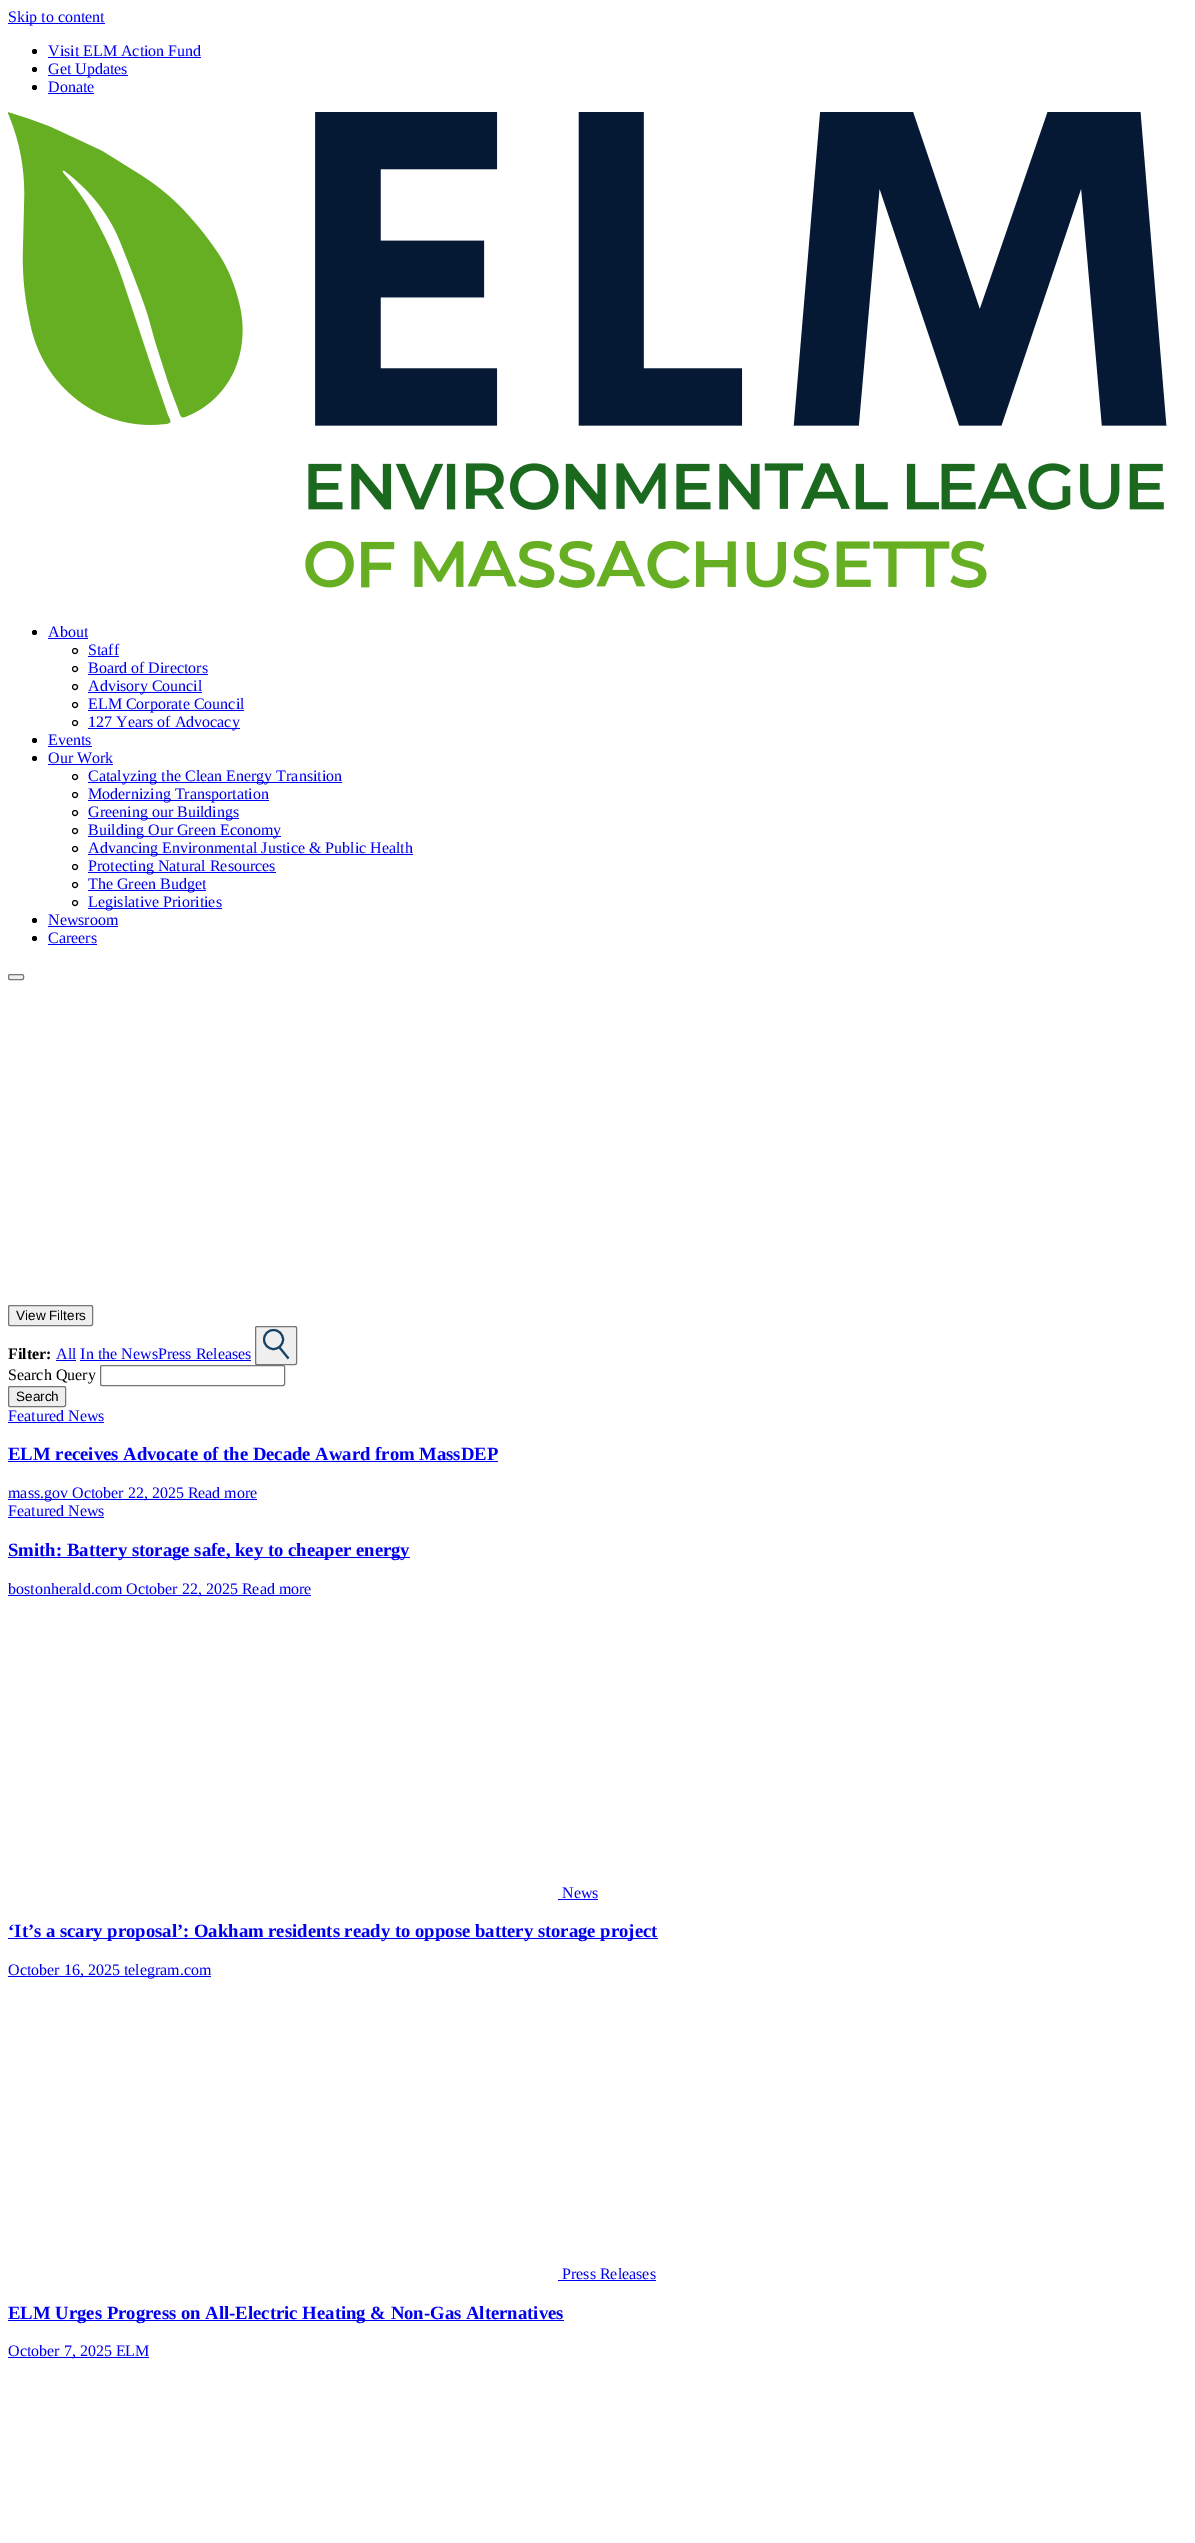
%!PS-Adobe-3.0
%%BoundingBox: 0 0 1195 2543
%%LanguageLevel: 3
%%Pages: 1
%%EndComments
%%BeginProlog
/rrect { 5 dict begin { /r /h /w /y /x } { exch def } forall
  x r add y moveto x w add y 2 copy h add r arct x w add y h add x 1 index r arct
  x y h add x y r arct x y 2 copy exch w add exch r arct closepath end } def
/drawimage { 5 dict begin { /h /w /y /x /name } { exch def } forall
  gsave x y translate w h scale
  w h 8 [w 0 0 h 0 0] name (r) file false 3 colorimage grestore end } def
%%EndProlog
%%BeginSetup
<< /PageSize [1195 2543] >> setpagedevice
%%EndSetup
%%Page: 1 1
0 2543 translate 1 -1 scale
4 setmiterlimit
1 setgray
0 0 1195 2543 rectfill
0 0 0.933 setrgbcolor
8 23 97 1 rectfill
0 setgray
newpath 34.5 51.5 2.5 0 360 arc closepath fill
0 0 0.933 setrgbcolor
48 57 153 1 rectfill
0 setgray
newpath 34.5 69.5 2.5 0 360 arc closepath fill
0 0 0.933 setrgbcolor
48 75 80 1 rectfill
0 setgray
newpath 34.5 87.5 2.5 0 360 arc closepath fill
0 0 0.933 setrgbcolor
48 93 46 1 rectfill
(images/1.raw) 8 112 1159 477 drawimage
0 setgray
newpath 34.5 632.5 2.5 0 360 arc closepath fill
0 0 0.933 setrgbcolor
48 638 40 1 rectfill
0 setgray
newpath 75 651 2.5 0 360 arc closepath stroke
0 0 0.933 setrgbcolor
88 656 31 1 rectfill
0 setgray
newpath 75 669 2.5 0 360 arc closepath stroke
0 0 0.933 setrgbcolor
88 674 120 1 rectfill
0 setgray
newpath 75 687 2.5 0 360 arc closepath stroke
0 0 0.933 setrgbcolor
88 692 114 1 rectfill
0 setgray
newpath 75 705 2.5 0 360 arc closepath stroke
0 0 0.933 setrgbcolor
88 710 156 1 rectfill
0 setgray
newpath 75 723 2.5 0 360 arc closepath stroke
0 0 0.933 setrgbcolor
88 728 152 1 rectfill
0 setgray
newpath 34.5 740.5 2.5 0 360 arc closepath fill
0 0 0.933 setrgbcolor
48 746 44 1 rectfill
0 setgray
newpath 34.5 758.5 2.5 0 360 arc closepath fill
0 0 0.933 setrgbcolor
48 764 65 1 rectfill
0 setgray
newpath 75 777 2.5 0 360 arc closepath stroke
0 0 0.933 setrgbcolor
88 782 254 1 rectfill
0 setgray
newpath 75 795 2.5 0 360 arc closepath stroke
0 0 0.933 setrgbcolor
88 800 181 1 rectfill
0 setgray
newpath 75 813 2.5 0 360 arc closepath stroke
0 0 0.933 setrgbcolor
88 818 151 1 rectfill
0 setgray
newpath 75 831 2.5 0 360 arc closepath stroke
0 0 0.933 setrgbcolor
88 836 193 1 rectfill
0 setgray
newpath 75 849 2.5 0 360 arc closepath stroke
0 0 0.933 setrgbcolor
88 854 325 1 rectfill
0 setgray
newpath 75 867 2.5 0 360 arc closepath stroke
0 0 0.933 setrgbcolor
88 872 188 1 rectfill
0 setgray
newpath 75 885 2.5 0 360 arc closepath stroke
0 0 0.933 setrgbcolor
88 890 118 1 rectfill
0 setgray
newpath 75 903 2.5 0 360 arc closepath stroke
0 0 0.933 setrgbcolor
88 908 134 1 rectfill
0 setgray
newpath 34.5 920.5 2.5 0 360 arc closepath fill
0 0 0.933 setrgbcolor
48 926 70 1 rectfill
0 setgray
newpath 34.5 938.5 2.5 0 360 arc closepath fill
0 0 0.933 setrgbcolor
48 944 49 1 rectfill
0.937 setgray
8.5 974.5 15 5 1.5 rrect gsave fill grestore
0.463 setgray
stroke
0.937 setgray
8.5 1305.5 84 20 1.5 rrect gsave fill grestore
0.463 setgray
stroke
0 0 0.933 setrgbcolor
56 1360 20 1 rectfill
0.937 setgray
255.5 1326.5 41 38 1.5 rrect gsave fill grestore
0.463 setgray
stroke
0.086 0.263 0.396 setrgbcolor
2 setlinewidth
newpath 273.5 1339.5 9.5 0 360 arc closepath stroke
newpath 279.5 1347.5 moveto 288.5 1358.5 lineto stroke
0 0 0.933 setrgbcolor
80 1360 171 1 rectfill
0.463 setgray
1 setlinewidth
100.5 1365.5 184 20 1.5 rrect stroke
0.937 setgray
8.5 1386.5 57 20 1.5 rrect gsave fill grestore
0.463 setgray
stroke
0 0 0.933 setrgbcolor
8 1422 96 1 rectfill
8 1461 490 1 rectfill
8 1499 249 1 rectfill
8 1517 96 1 rectfill
8 1557 402 1 rectfill
8 1595 303 1 rectfill
558 1899 40 1 rectfill
8 1938 650 1 rectfill
8 1976 203 1 rectfill
558 2280 98 1 rectfill
8 2320 556 1 rectfill
8 2357 141 1 rectfill
/LiberationSerif-Regular [16 0 0 -16 0 0] selectfont
8 22 moveto (Skip to content) show
48 56 moveto (Visit ELM Action Fund) show
48 74 moveto (Get Updates) show
48 92 moveto (Donate) show
48 637 moveto (About) show
88 655 moveto (Staff) show
88 673 moveto (Board of Directors) show
88 691 moveto (Advisory Council) show
88 709 moveto (ELM Corporate Council) show
88 727 moveto (127 Years of Advocacy) show
48 745 moveto (Events) show
48 763 moveto (Our Work) show
88 781 moveto (Catalyzing the Clean Energy Transition) show
88 799 moveto (Modernizing Transportation) show
88 817 moveto (Greening our Buildings) show
88 835 moveto (Building Our Green Economy) show
88 853 moveto (Advancing Environmental Justice & Public Health) show
88 871 moveto (Protecting Natural Resources) show
88 889 moveto (The Green Budget) show
88 907 moveto (Legislative Priorities) show
48 925 moveto (Newsroom) show
48 943 moveto (Careers) show
/LiberationSans-Regular [13.5 0 0 -13.5 0 0] selectfont
0 setgray
16 1320 moveto (View Filters) show
/LiberationSerif-Bold [16 0 0 -16 0 0] selectfont
8 1359 moveto (Filter:) show
/LiberationSerif-Regular [16 0 0 -16 0 0] selectfont
0 0 0.933 setrgbcolor
56 1359 moveto (All In the NewsPress Releases) show
0 setgray
8 1380 moveto (Search Query) show
/LiberationSans-Regular [13.5 0 0 -13.5 0 0] selectfont
16 1401 moveto (Search) show
/LiberationSerif-Regular [16 0 0 -16 0 0] selectfont
0 0 0.933 setrgbcolor
8 1421 moveto (Featured News) show
/LiberationSerif-Bold [18.7 0 0 -18.7 0 0] selectfont
8 1460 moveto (ELM receives Advocate of the Decade Award from MassDEP) show
/LiberationSerif-Regular [16 0 0 -16 0 0] selectfont
8 1498 moveto (mass.gov October 22, 2025 Read more) show
8 1516 moveto (Featured News) show
/LiberationSerif-Bold [18.7 0 0 -18.7 0 0] selectfont
8 1556 moveto (Smith: Battery storage safe, key to cheaper energy) show
/LiberationSerif-Regular [16 0 0 -16 0 0] selectfont
8 1594 moveto (bostonherald.com October 22, 2025 Read more) show
562 1898 moveto (News) show
/LiberationSerif-Bold [18.7 0 0 -18.7 0 0] selectfont
8 1937 moveto (‘It’s a scary proposal’: Oakham residents ready to oppose battery storage project) show
/LiberationSerif-Regular [16 0 0 -16 0 0] selectfont
8 1975 moveto (October 16, 2025 telegram.com) show
562 2279 moveto (Press Releases) show
/LiberationSerif-Bold [18.7 0 0 -18.7 0 0] selectfont
8 2319 moveto (ELM Urges Progress on All-Electric Heating & Non-Gas Alternatives) show
/LiberationSerif-Regular [16 0 0 -16 0 0] selectfont
8 2356 moveto (October 7, 2025 ELM) show
showpage
%%EOF
